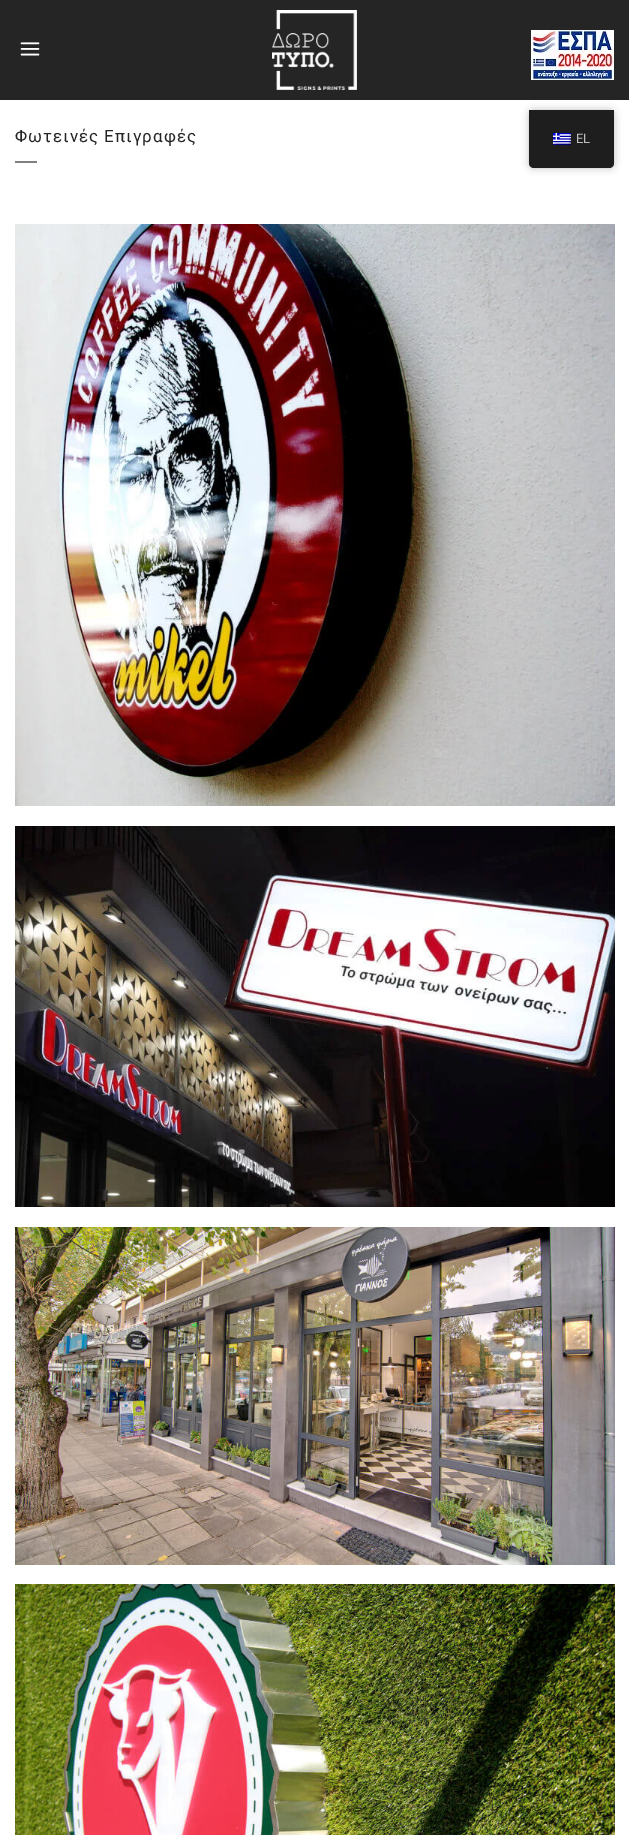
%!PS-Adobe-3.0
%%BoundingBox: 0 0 629 1835
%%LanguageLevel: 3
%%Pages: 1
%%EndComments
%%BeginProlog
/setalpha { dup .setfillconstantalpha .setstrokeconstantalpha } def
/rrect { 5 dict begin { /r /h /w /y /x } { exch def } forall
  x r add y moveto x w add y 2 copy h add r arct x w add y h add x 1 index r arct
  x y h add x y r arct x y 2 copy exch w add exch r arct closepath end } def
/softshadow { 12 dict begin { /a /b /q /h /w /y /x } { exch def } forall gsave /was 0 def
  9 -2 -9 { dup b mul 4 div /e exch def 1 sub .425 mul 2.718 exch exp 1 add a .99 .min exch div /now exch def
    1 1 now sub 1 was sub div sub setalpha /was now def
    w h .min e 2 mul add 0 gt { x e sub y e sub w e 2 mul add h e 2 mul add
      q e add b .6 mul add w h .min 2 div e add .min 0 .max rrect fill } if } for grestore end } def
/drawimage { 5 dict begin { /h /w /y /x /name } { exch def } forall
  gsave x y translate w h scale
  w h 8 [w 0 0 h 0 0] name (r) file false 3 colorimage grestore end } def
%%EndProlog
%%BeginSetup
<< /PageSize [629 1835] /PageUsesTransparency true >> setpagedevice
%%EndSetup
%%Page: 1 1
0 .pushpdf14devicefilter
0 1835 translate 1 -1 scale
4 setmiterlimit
1 setgray
0 0 629 1835 rectfill
0.145 setgray
0 0 629 100 rectfill
(images/1.raw) 20 42 20 14 drawimage
(images/2.raw) 272 10 85 80 drawimage
(images/3.raw) 531 30 83 50 drawimage
0.502 setgray
15 161 22 2 rectfill
(images/4.raw) 15 224 600 582 drawimage
(images/5.raw) 15 826 600 381 drawimage
(images/6.raw) 15 1227 600 338 drawimage
(images/7.raw) 15 1584 600 251 drawimage
0 setgray
529 110 85 58 5 4 0.25 softshadow
0.118 setgray
newpath 529 110 moveto 614 110 lineto 614 163 lineto 614 166 612 168 609 168 curveto 534 168 lineto 531 168 529 166 529 163 curveto closepath fill
(images/8.raw) 553 133 18 12 drawimage
/Roboto-Regular [17 0 0 -17 0 0] selectfont
0.145 setgray
15 142 moveto 1 0 (Φωτεινές Επιγραφές) ashow
/Roboto-Regular [13 0 0 -13 0 0] selectfont
0.741 setgray
576 143 moveto (EL) show
.poppdf14devicefilter showpage
%%EOF
